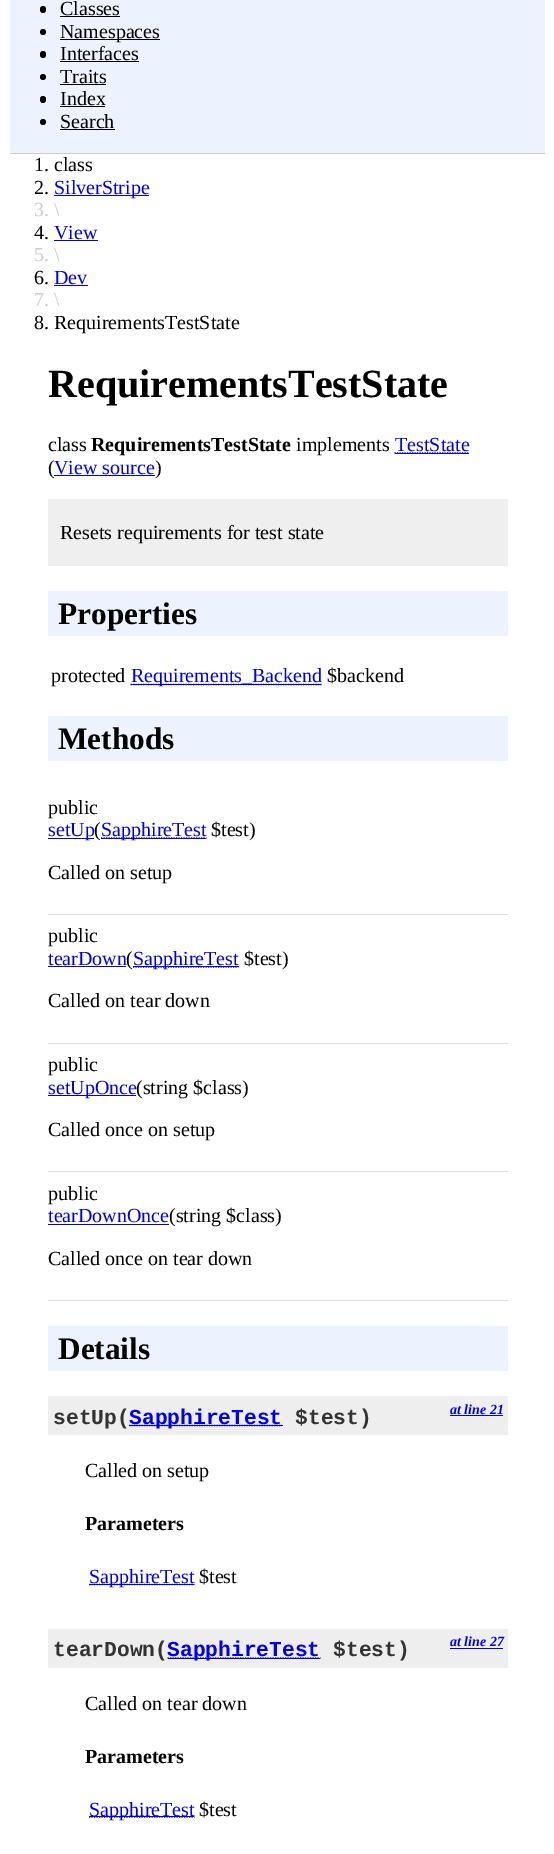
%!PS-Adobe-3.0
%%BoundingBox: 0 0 554 1854
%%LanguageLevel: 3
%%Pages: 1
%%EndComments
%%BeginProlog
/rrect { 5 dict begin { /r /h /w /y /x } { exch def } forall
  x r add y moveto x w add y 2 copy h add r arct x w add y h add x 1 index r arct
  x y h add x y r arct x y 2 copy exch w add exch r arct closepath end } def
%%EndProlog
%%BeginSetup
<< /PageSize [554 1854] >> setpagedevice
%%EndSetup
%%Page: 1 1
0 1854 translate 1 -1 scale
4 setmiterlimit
1 setgray
0 0 554 1854 rectfill
0.929 0.953 0.996 setrgbcolor
10 0 535 153 rectfill
0.8 setgray
10 153 535 1 rectfill
0 setgray
40 6 6 7 3 rrect fill
60 16 60 1 rectfill
newpath 43 32 3 0 360 arc closepath fill
60 39 100 1 rectfill
40 51 6 7 3 rrect fill
60 61 79 1 rectfill
newpath 43 77 3 0 360 arc closepath fill
60 84 46 1 rectfill
40 96 6 7 3 rrect fill
60 106 45 1 rectfill
newpath 43 122 3 0 360 arc closepath fill
60 129 55 1 rectfill
0 0 0.933 setrgbcolor
54 195 95 1 rectfill
54 240 44 1 rectfill
54 285 34 1 rectfill
1.2 setlinewidth
[1.25 1.25] 0 setdash
newpath 394.5 453 moveto 469 453 lineto stroke
395 453 74 1 rectfill
54 475 101 1 rectfill
0.937 setgray
48 499 460 67 rectfill
0.929 0.953 0.996 setrgbcolor
48 591 460 45 rectfill
0 0 0.933 setrgbcolor
newpath 130.5 684.5 moveto 321.5 684.5 lineto stroke
131 684 190 1 rectfill
0.929 0.953 0.996 setrgbcolor
48 716 460 45 rectfill
0.867 setgray
48 914 460 1 rectfill
0 0 0.933 setrgbcolor
48 838 46 1 rectfill
newpath 101 838 moveto 206.5 838 lineto stroke
101 838 105 1 rectfill
0.867 setgray
48 1043 460 1 rectfill
0 0 0.933 setrgbcolor
48 966 78 1 rectfill
newpath 133 967 moveto 238.5 967 lineto stroke
133 966 106 1 rectfill
0.867 setgray
48 1171 460 1 rectfill
0 0 0.933 setrgbcolor
48 1095 88 1 rectfill
0.867 setgray
48 1300 460 1 rectfill
0 0 0.933 setrgbcolor
48 1224 121 1 rectfill
0.929 0.953 0.996 setrgbcolor
48 1326 460 45 rectfill
0.933 setgray
48 1396 460 39 rectfill
0 0 0.933 setrgbcolor
newpath 129 1425.5 moveto 282 1425.5 lineto stroke
129 1425 154 1 rectfill
450 1415 53 1 rectfill
newpath 89 1584.5 moveto 194.5 1584.5 lineto stroke
89 1584 105 1 rectfill
0.933 setgray
48 1629 460 39 rectfill
0 0 0.933 setrgbcolor
newpath 167.5 1658 moveto 320.5 1658 lineto stroke
168 1658 152 1 rectfill
450 1648 53 1 rectfill
newpath 89 1817 moveto 194.5 1817 lineto stroke
89 1816 105 1 rectfill
/LiberationSerif-Regular [20 0 0 -20 0 0] selectfont
0 setgray
60 15 moveto (Classes) show
60 38 moveto (Namespaces) show
60 60 moveto (Interfaces) show
60 83 moveto (Traits) show
60 105 moveto (Index) show
60 128 moveto (Search) show
34 171 moveto (1. class) show
34 194 moveto (2.) show
0 0 0.933 setrgbcolor
54 194 moveto (SilverStripe) show
0.8 setgray
34 216 moveto (3. \\) show
0 setgray
34 239 moveto (4.) show
0 0 0.933 setrgbcolor
54 239 moveto (View) show
0.8 setgray
34 261 moveto (5. \\) show
0 setgray
34 284 moveto (6.) show
0 0 0.933 setrgbcolor
54 284 moveto (Dev) show
0.8 setgray
34 306 moveto (7. \\) show
0 setgray
34 329 moveto (8. RequirementsTestState) show
/LiberationSerif-Bold [40 0 0 -40 0 0] selectfont
48 397 moveto (RequirementsTestState) show
/LiberationSerif-Regular [20 0 0 -20 0 0] selectfont
48 451 moveto (class) show
/LiberationSerif-Bold [20 0 0 -20 0 0] selectfont
91 451 moveto (RequirementsTestState) show
/LiberationSerif-Regular [20 0 0 -20 0 0] selectfont
296 451 moveto (implements) show
0 0 0.933 setrgbcolor
395 451 moveto (TestState) show
0 setgray
48 474 moveto (\() show
0 0 0.933 setrgbcolor
54 474 moveto (View source) show
0 setgray
155 474 moveto (\)) show
60 539 moveto (Resets requirements for test state) show
/LiberationSerif-Bold [31.25 0 0 -31.25 0 0] selectfont
58 624 moveto (Properties) show
/LiberationSerif-Regular [20 0 0 -20 0 0] selectfont
51 682 moveto (protected) show
0 0 0.933 setrgbcolor
131 682 moveto (Requirements_Backend) show
0 setgray
327 682 moveto ($backend) show
/LiberationSerif-Bold [31.25 0 0 -31.25 0 0] selectfont
58 749 moveto (Methods) show
/LiberationSerif-Regular [20 0 0 -20 0 0] selectfont
48 814 moveto (public) show
0 0 0.933 setrgbcolor
48 836 moveto (setUp) show
0 setgray
94 836 moveto (\() show
0 0 0.933 setrgbcolor
101 836 moveto (SapphireTest) show
0 setgray
211 836 moveto ($test\)) show
48 879 moveto (Called on setup) show
48 942 moveto (public) show
0 0 0.933 setrgbcolor
48 965 moveto (tearDown) show
0 setgray
126 965 moveto (\() show
0 0 0.933 setrgbcolor
133 965 moveto (SapphireTest) show
0 setgray
244 965 moveto ($test\)) show
48 1007 moveto (Called on tear down) show
48 1071 moveto (public) show
0 0 0.933 setrgbcolor
48 1094 moveto (setUpOnce) show
0 setgray
136 1094 moveto (\(string $class\)) show
48 1136 moveto (Called once on setup) show
48 1200 moveto (public) show
0 0 0.933 setrgbcolor
48 1222 moveto (tearDownOnce) show
0 setgray
169 1222 moveto (\(string $class\)) show
48 1265 moveto (Called once on tear down) show
/LiberationSerif-Bold [31.25 0 0 -31.25 0 0] selectfont
58 1359 moveto (Details) show
/LiberationMono-Bold [21.25 0 0 -21.25 0 0] selectfont
0.2 setgray
53 1424 moveto (setUp\() show
0 0 0.933 setrgbcolor
129 1424 moveto (SapphireTest) show
0.2 setgray
295 1424 moveto ($test\)) show
/LiberationSerif-BoldItalic [14 0 0 -14 0 0] selectfont
0 0 0.933 setrgbcolor
450 1414 moveto (at line 21) show
/LiberationSerif-Regular [20 0 0 -20 0 0] selectfont
0 setgray
85 1477 moveto (Called on setup) show
/LiberationSerif-Bold [20 0 0 -20 0 0] selectfont
85 1530 moveto (Parameters) show
/LiberationSerif-Regular [20 0 0 -20 0 0] selectfont
0 0 0.933 setrgbcolor
89 1583 moveto (SapphireTest) show
0 setgray
199 1583 moveto ($test) show
/LiberationMono-Bold [21.25 0 0 -21.25 0 0] selectfont
0.2 setgray
53 1656 moveto (tearDown\() show
0 0 0.933 setrgbcolor
167 1656 moveto (SapphireTest) show
0.2 setgray
333 1656 moveto ($test\)) show
/LiberationSerif-BoldItalic [14 0 0 -14 0 0] selectfont
0 0 0.933 setrgbcolor
450 1646 moveto (at line 27) show
/LiberationSerif-Regular [20 0 0 -20 0 0] selectfont
0 setgray
85 1710 moveto (Called on tear down) show
/LiberationSerif-Bold [20 0 0 -20 0 0] selectfont
85 1763 moveto (Parameters) show
/LiberationSerif-Regular [20 0 0 -20 0 0] selectfont
0 0 0.933 setrgbcolor
89 1816 moveto (SapphireTest) show
0 setgray
199 1816 moveto ($test) show
showpage
%%EOF
